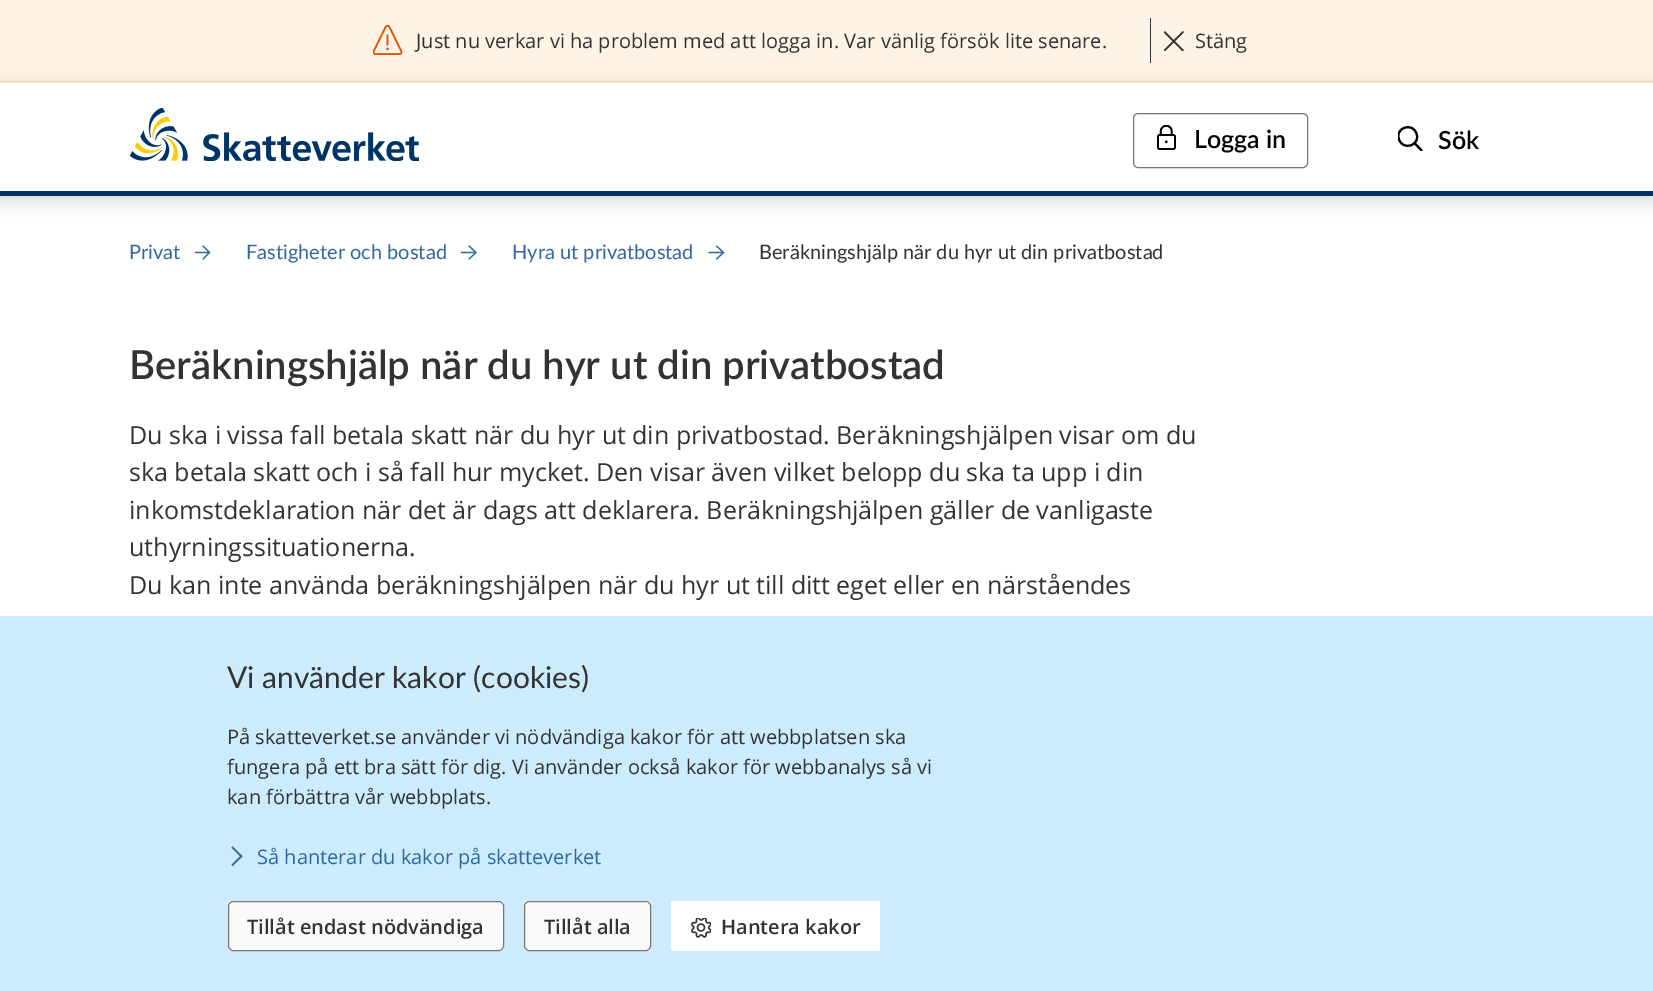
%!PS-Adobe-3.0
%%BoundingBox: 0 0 1653 991
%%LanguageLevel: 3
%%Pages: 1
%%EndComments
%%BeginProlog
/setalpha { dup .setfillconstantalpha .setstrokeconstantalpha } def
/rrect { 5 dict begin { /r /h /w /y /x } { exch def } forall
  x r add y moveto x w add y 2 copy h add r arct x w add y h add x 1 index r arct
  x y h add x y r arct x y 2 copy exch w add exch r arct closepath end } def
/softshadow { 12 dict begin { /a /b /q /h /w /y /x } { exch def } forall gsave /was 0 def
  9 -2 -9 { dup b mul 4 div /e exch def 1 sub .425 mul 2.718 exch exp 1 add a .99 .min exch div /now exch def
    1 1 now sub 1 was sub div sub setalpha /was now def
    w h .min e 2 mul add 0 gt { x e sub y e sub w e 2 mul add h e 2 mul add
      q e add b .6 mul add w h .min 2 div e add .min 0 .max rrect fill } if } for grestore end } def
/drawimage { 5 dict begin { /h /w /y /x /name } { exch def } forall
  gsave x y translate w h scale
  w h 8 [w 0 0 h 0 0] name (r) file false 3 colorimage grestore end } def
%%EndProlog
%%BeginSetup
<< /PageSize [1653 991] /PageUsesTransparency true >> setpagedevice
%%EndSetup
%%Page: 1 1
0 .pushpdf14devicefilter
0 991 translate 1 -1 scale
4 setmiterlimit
1 setgray
0 0 1653 991 rectfill
0.996 0.957 0.898 setrgbcolor
0 0 1653 80 rectfill
0.992 0.914 0.8 setrgbcolor
0 80 1653 3 rectfill
(images/1.raw) 373 25 30 30 drawimage
gsave
newpath 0 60 moveto 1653 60 lineto 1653 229 lineto 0 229 lineto closepath -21 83 moveto 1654 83 lineto 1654 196 lineto -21 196 lineto closepath eoclip newpath
0.071 setgray
-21 88 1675 113 0 9 0.17 softshadow
grestore
0.2 setgray
1150 18 1 45 rectfill
gsave
1164 31 20 20 rectclip
1.7 setlinewidth
1 setlinecap
1 setlinejoin
newpath 1164.5 50.5 moveto 1183 32 lineto 1183 50.5 moveto 1164.5 32 lineto stroke
grestore
0 0.2 0.4 setrgbcolor
0 191 1653 5 rectfill
(images/2.raw) 129 108 290 53 drawimage
0.463 setgray
1133.5 113.5 174 54 4.5 rrect stroke
(images/3.raw) 1157 125 19 25 drawimage
gsave
1398 126 25 25 rectclip
0 setgray
2.1 setlinewidth
1 setlinecap
1 setlinejoin
newpath 1404 128 moveto 1415.5 123 1423 140.5 1411.5 145 curveto 1400 150 1392.5 132.5 1404 128 curveto closepath 1414.5 143 moveto 1421.5 150.5 lineto stroke
grestore
0.188 0.412 0.631 setrgbcolor
1.2 setlinewidth
1 setlinecap
1 setlinejoin
newpath 195.5 252.5 moveto 209.5 252.5 lineto 203 259 moveto 209.5 252.5 lineto 203 246 lineto stroke
newpath 461.5 252.5 moveto 476 252.5 lineto 469 259 moveto 476 252.5 lineto 469 246 lineto stroke
newpath 709 252.5 moveto 723.5 252.5 lineto 716.5 259 moveto 723.5 252.5 lineto 716.5 246 lineto stroke
0.8 0.925 0.992 setrgbcolor
0 616 1653 375 rectfill
0.188 0.412 0.631 setrgbcolor
1.7 setlinewidth
0 setlinecap
0 setlinejoin
newpath 232 847 moveto 239.5 854.5 lineto 242 856.5 242 856 239.5 858 curveto 232 865.5 lineto stroke
1 setgray
228 901 276 50 2.5 rrect fill
0.98 setgray
228.5 901.5 275 49 4.5 rrect gsave fill grestore
0.463 setgray
1 setlinewidth
stroke
1 setgray
524 901 127 50 2.5 rrect fill
0.98 setgray
524.5 901.5 126 49 4.5 rrect gsave fill grestore
0.463 setgray
stroke
1 setgray
671 901 209 50 2.5 rrect fill
(images/4.raw) 691 918 20 20 drawimage
/OpenSans-Regular [20 0 0 -20 0 0] selectfont
0.2 setgray
416 48 moveto (Just nu verkar vi ha problem med att logga in. Var vänlig försök lite senare.) show
1195 48 moveto (Stäng) show
/Lato-SemiBold [25 0 0 -25 0 0] selectfont
0 setgray
1194 148 moveto (Logga in) show
1438 149 moveto (Sök) show
/Lato-Regular [20 0 0 -20 0 0] selectfont
0.188 0.412 0.631 setrgbcolor
129 259 moveto (Privat) show
246 259 moveto (Fastigheter och bostad) show
512 259 moveto (Hyra ut privatbostad) show
0.2 setgray
759 259 moveto (Beräkningshjälp när du hyr ut din privatbostad) show
/Lato-SemiBold [40 0 0 -40 0 0] selectfont
129 379 moveto (Beräkningshjälp när du hyr ut din privatbostad) show
/OpenSans-Regular [25 0 0 -25 0 0] selectfont
129 444 moveto (Du ska i vissa fall betala skatt när du hyr ut din privatbostad. Beräkningshjälpen visar om du) show
129 481 moveto (ska betala skatt och i så fall hur mycket. Den visar även vilket belopp du ska ta upp i din) show
129 519 moveto (inkomstdeklaration när det är dags att deklarera. Beräkningshjälpen gäller de vanligaste) show
129 556 moveto (uthyrningssituationerna.) show
129 594 moveto (Du kan inte använda beräkningshjälpen när du hyr ut till ditt eget eller en närståendes) show
/Lato-Regular [30 0 0 -30 0 0] selectfont
227 688 moveto (Vi använder kakor \(cookies\)) show
/OpenSans-Regular [20 0 0 -20 0 0] selectfont
227 744 moveto (På skatteverket.se använder vi nödvändiga kakor för att webbplatsen ska) show
227 774 moveto (fungera på ett bra sätt för dig. Vi använder också kakor för webbanalys så vi) show
227 804 moveto (kan förbättra vår webbplats.) show
0.188 0.412 0.631 setrgbcolor
257 864 moveto (Så hanterar du kakor på skatteverket) show
/OpenSans-SemiBold [20 0 0 -20 0 0] selectfont
0.2 setgray
247 934 moveto (Tillåt endast nödvändiga) show
544 934 moveto (Tillåt alla) show
721 934 moveto (Hantera kakor) show
.poppdf14devicefilter showpage
%%EOF
